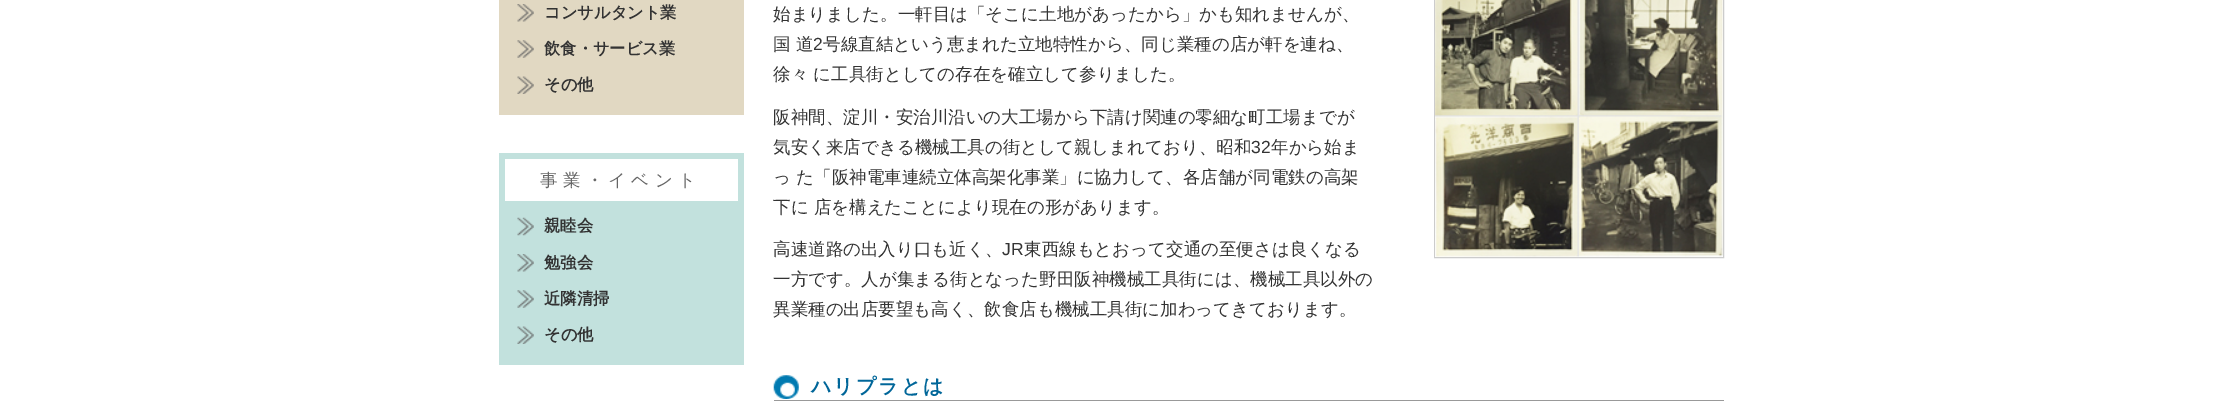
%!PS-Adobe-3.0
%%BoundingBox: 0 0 2221 413
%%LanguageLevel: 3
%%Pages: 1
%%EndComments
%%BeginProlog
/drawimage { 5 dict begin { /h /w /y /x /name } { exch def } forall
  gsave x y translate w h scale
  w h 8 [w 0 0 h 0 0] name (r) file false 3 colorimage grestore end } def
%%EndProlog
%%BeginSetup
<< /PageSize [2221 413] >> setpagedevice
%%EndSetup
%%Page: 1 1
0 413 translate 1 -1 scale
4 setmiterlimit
1 setgray
0 0 2221 413 rectfill
0.882 0.847 0.761 setrgbcolor
499 0 245 115 rectfill
(images/1.raw) 517 4 17 18 drawimage
(images/2.raw) 517 40 17 18 drawimage
(images/3.raw) 517 76 17 18 drawimage
0.761 0.882 0.867 setrgbcolor
499 153 245 212 rectfill
1 setgray
505 159 233 42 rectfill
(images/4.raw) 517 217 17 19 drawimage
(images/5.raw) 517 254 17 18 drawimage
(images/6.raw) 517 290 17 18 drawimage
(images/7.raw) 517 326 17 18 drawimage
0.8 setgray
1434.5 -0.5 289 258 rectstroke
(images/8.raw) 1435 0 288 257 drawimage
(images/9.raw) 773 375 26 24 drawimage
0.6 setgray
774 400 950 1 rectfill
/WenQuanYiZenHei-Bold [16.25 0 0 -16.25 0 0] selectfont
0.2 setgray
544 18 moveto (コンサルタント業) show
544 54 moveto (飲食・サービス業) show
544 90 moveto (その他) show
/WenQuanYiZenHei-Medium [17.5 0 0 -17.5 0 0] selectfont
0.4 setgray
540 186 moveto 5.25 0 (事業・イベント) ashow
/WenQuanYiZenHei-Bold [16.25 0 0 -16.25 0 0] selectfont
0.2 setgray
544 231 moveto (親睦会) show
544 268 moveto (勉強会) show
544 304 moveto (近隣清掃) show
544 340 moveto (その他) show
/WenQuanYiZenHei-Medium [17.5 0 0 -17.5 0 0] selectfont
773 20 moveto (始まりました。一軒目は「そこに土地があったから」かも知れませんが、) show
773 50 moveto (国 道) show
/LiberationSans-Regular [17.5 0 0 -17.5 0 0] selectfont
813 50 moveto (2) show
/WenQuanYiZenHei-Medium [17.5 0 0 -17.5 0 0] selectfont
823 50 moveto (号線直結という恵まれた立地特性から、同じ業種の店が軒を連ね、) show
773 80 moveto (徐々 に工具街としての存在を確立して参りました。) show
773 123 moveto (阪神間、淀川・安治川沿いの大工場から下請け関連の零細な町工場までが) show
773 153 moveto (気安く来店できる機械工具の街として親しまれており、昭和) show
/LiberationSans-Regular [17.5 0 0 -17.5 0 0] selectfont
1251 153 moveto (32) show
/WenQuanYiZenHei-Medium [17.5 0 0 -17.5 0 0] selectfont
1271 153 moveto (年から始ま) show
773 183 moveto (っ た「阪神電車連続立体高架化事業」に協力して、各店舗が同電鉄の高架) show
773 213 moveto (下に 店を構えたことにより現在の形があります。) show
773 255 moveto (高速道路の出入り口も近く、) show
/LiberationSans-Regular [17.5 0 0 -17.5 0 0] selectfont
1002 255 moveto (JR) show
/WenQuanYiZenHei-Medium [17.5 0 0 -17.5 0 0] selectfont
1024 255 moveto (東西線もとおって交通の至便さは良くなる) show
773 285 moveto (一方です。人が集まる街となった野田阪神機械工具街には、機械工具以外の) show
773 315 moveto (異業種の出店要望も高く、飲食店も機械工具街に加わってきております。) show
/WenQuanYiZenHei-Bold [20 0 0 -20 0 0] selectfont
0 0.4 0.6 setrgbcolor
811 393 moveto 2 0 (ハリプラとは) ashow
showpage
%%EOF
